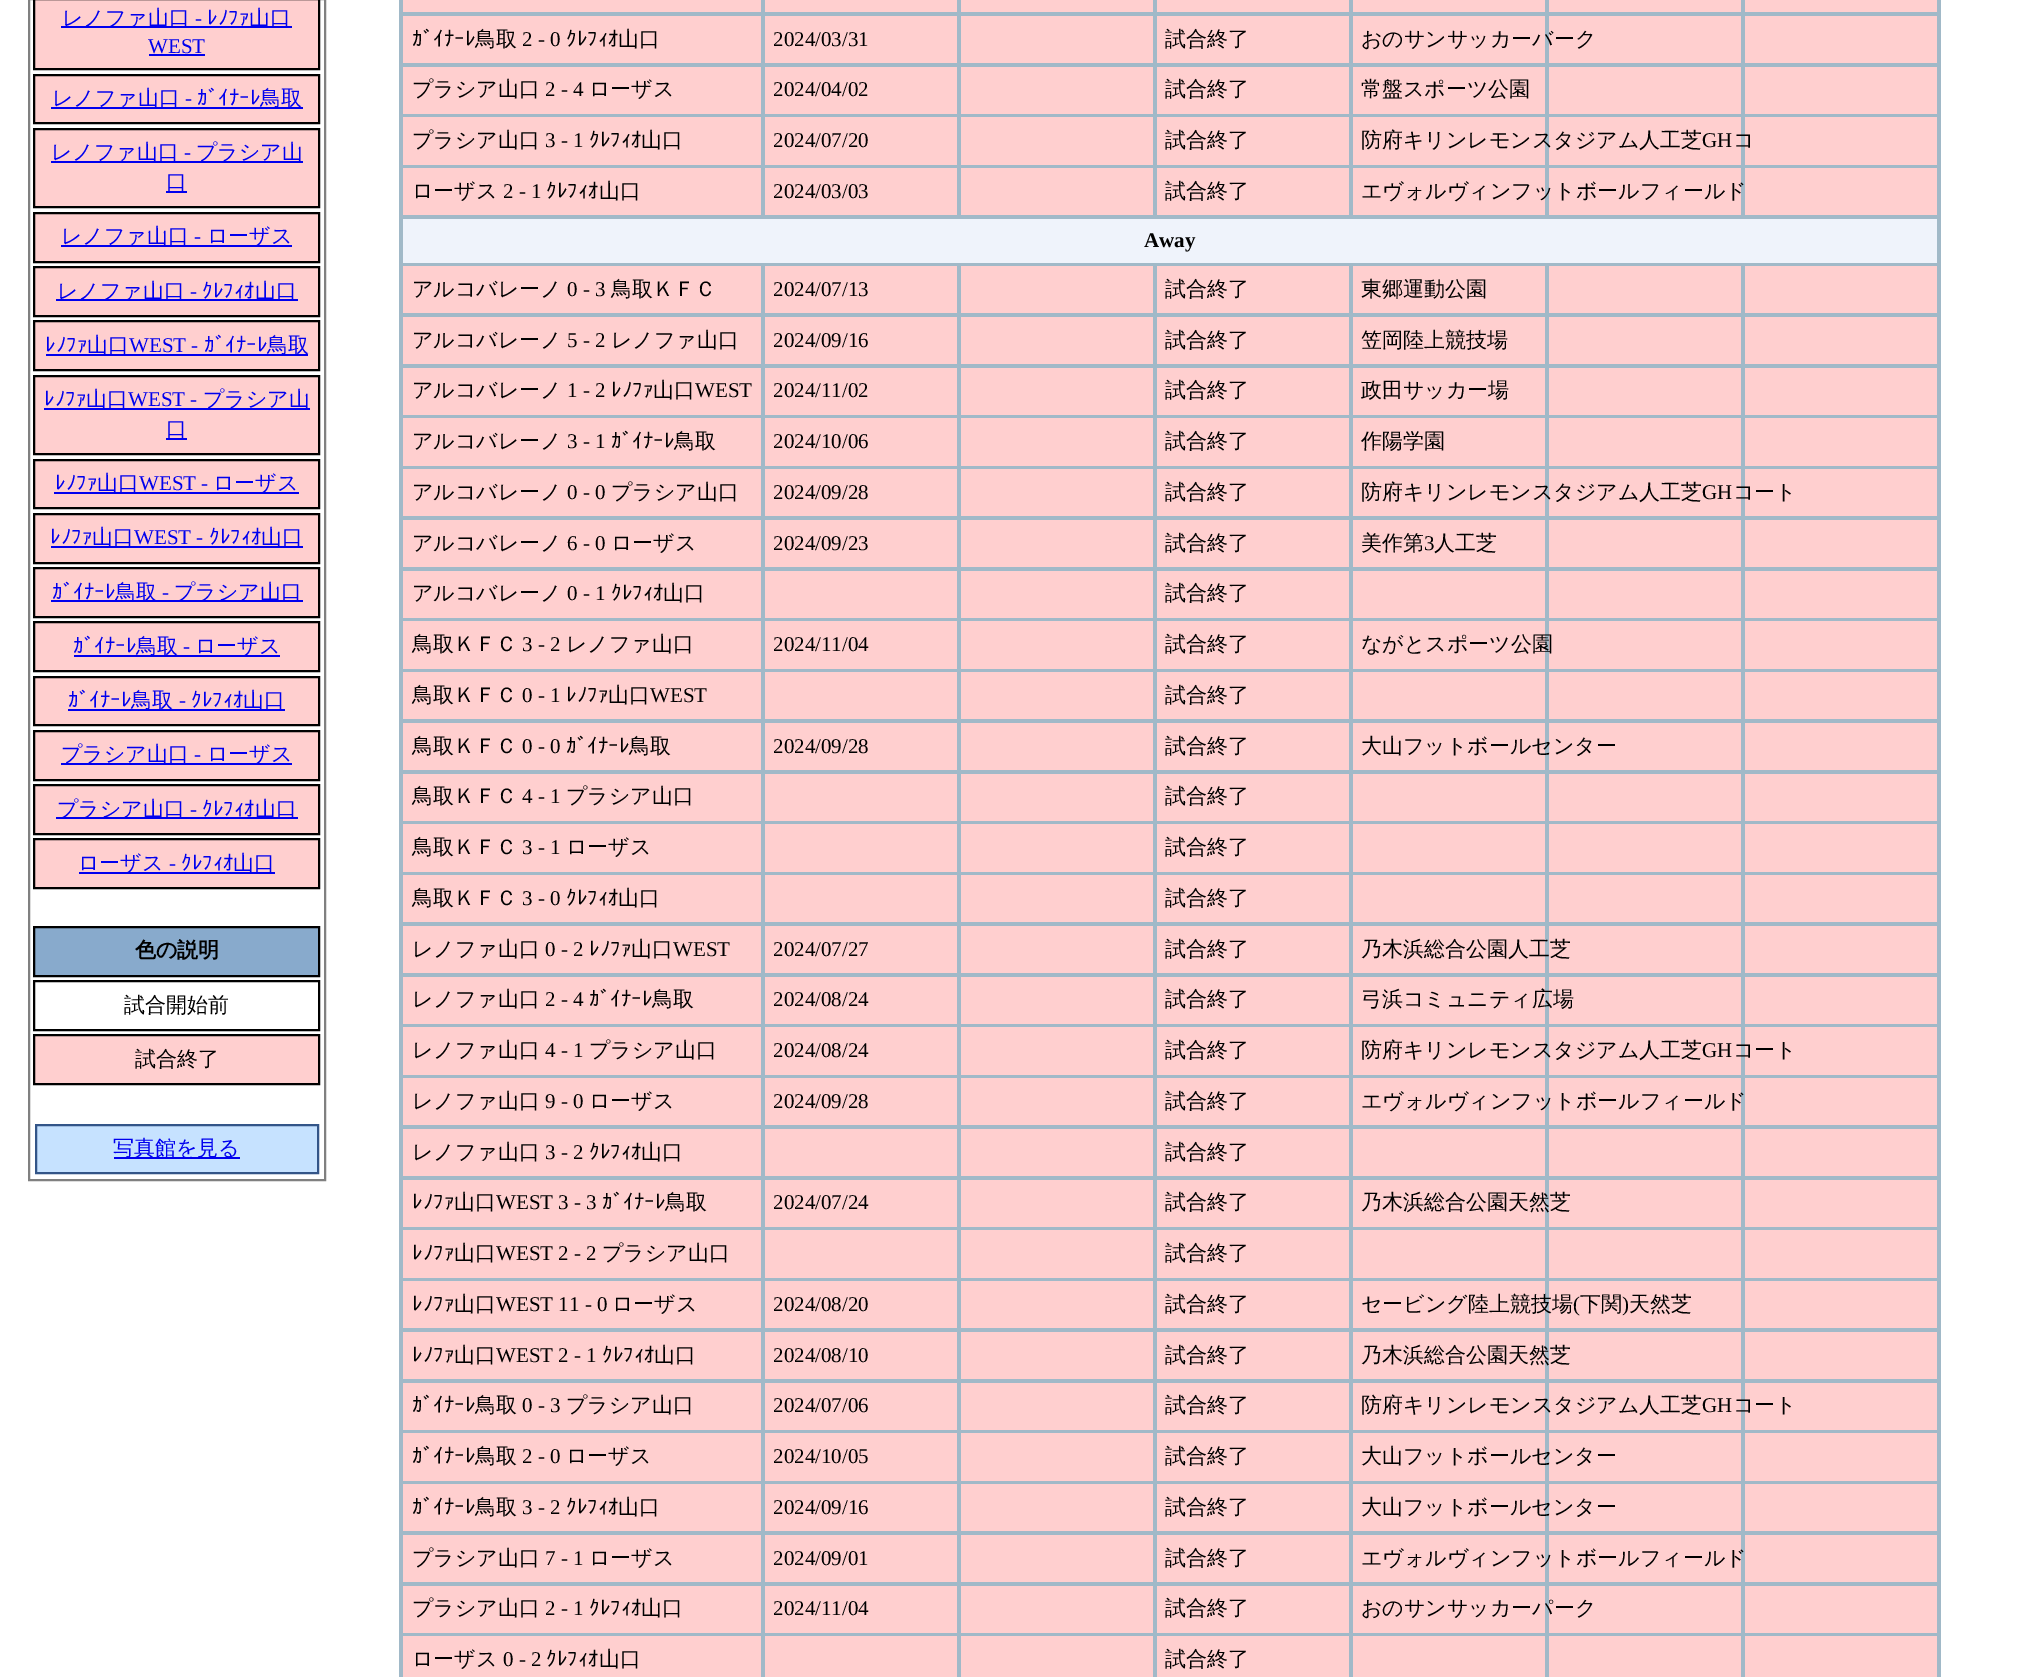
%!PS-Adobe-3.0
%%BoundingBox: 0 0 2026 1677
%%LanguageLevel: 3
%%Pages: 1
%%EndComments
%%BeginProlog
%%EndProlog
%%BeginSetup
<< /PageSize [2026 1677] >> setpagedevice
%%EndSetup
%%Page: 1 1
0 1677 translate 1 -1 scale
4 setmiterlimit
1 setgray
0 0 2026 1677 rectfill
0.502 setgray
2 setlinewidth
29 -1 296 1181 rectstroke
1 0.812 0.812 setrgbcolor
newpath 34 -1 moveto 319 -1 lineto 319 69 lineto 34 69 lineto closepath gsave fill grestore
0 setgray
stroke
0 0 0.933 setrgbcolor
61 26 231 2 rectfill
149 54 56 2 rectfill
1 0.812 0.812 setrgbcolor
newpath 34 75 moveto 319 75 lineto 319 123 lineto 34 123 lineto closepath gsave fill grestore
0 setgray
stroke
0 0 0.933 setrgbcolor
51 107 252 2 rectfill
1 0.812 0.812 setrgbcolor
newpath 34 129 moveto 319 129 lineto 319 207 lineto 34 207 lineto closepath gsave fill grestore
0 setgray
stroke
0 0 0.933 setrgbcolor
51 161 252 2 rectfill
166 191 21 2 rectfill
1 0.812 0.812 setrgbcolor
newpath 34 213 moveto 319 213 lineto 319 262 lineto 34 262 lineto closepath gsave fill grestore
0 setgray
stroke
0 0 0.933 setrgbcolor
61 245 231 2 rectfill
1 0.812 0.812 setrgbcolor
newpath 34 267 moveto 319 267 lineto 319 316 lineto 34 316 lineto closepath gsave fill grestore
0 setgray
stroke
0 0 0.933 setrgbcolor
56 299 242 2 rectfill
1 0.812 0.812 setrgbcolor
newpath 34 321 moveto 319 321 lineto 319 370 lineto 34 370 lineto closepath gsave fill grestore
0 setgray
stroke
0 0 0.933 setrgbcolor
46 354 262 2 rectfill
1 0.812 0.812 setrgbcolor
newpath 34 376 moveto 319 376 lineto 319 454 lineto 34 454 lineto closepath gsave fill grestore
0 setgray
stroke
0 0 0.933 setrgbcolor
44 408 266 2 rectfill
166 438 21 2 rectfill
1 0.812 0.812 setrgbcolor
newpath 34 460 moveto 319 460 lineto 319 508 lineto 34 508 lineto closepath gsave fill grestore
0 setgray
stroke
0 0 0.933 setrgbcolor
54 492 245 2 rectfill
1 0.812 0.812 setrgbcolor
newpath 34 514 moveto 319 514 lineto 319 563 lineto 34 563 lineto closepath gsave fill grestore
0 setgray
stroke
0 0 0.933 setrgbcolor
51 546 252 2 rectfill
1 0.812 0.812 setrgbcolor
newpath 34 568 moveto 319 568 lineto 319 617 lineto 34 617 lineto closepath gsave fill grestore
0 setgray
stroke
0 0 0.933 setrgbcolor
51 600 252 2 rectfill
1 0.812 0.812 setrgbcolor
newpath 34 622 moveto 319 622 lineto 319 671 lineto 34 671 lineto closepath gsave fill grestore
0 setgray
stroke
0 0 0.933 setrgbcolor
74 655 206 2 rectfill
1 0.812 0.812 setrgbcolor
newpath 34 677 moveto 319 677 lineto 319 725 lineto 34 725 lineto closepath gsave fill grestore
0 setgray
stroke
0 0 0.933 setrgbcolor
68 709 217 2 rectfill
1 0.812 0.812 setrgbcolor
newpath 34 731 moveto 319 731 lineto 319 780 lineto 34 780 lineto closepath gsave fill grestore
0 setgray
stroke
0 0 0.933 setrgbcolor
61 763 231 2 rectfill
1 0.812 0.812 setrgbcolor
newpath 34 785 moveto 319 785 lineto 319 834 lineto 34 834 lineto closepath gsave fill grestore
0 setgray
stroke
0 0 0.933 setrgbcolor
56 817 242 2 rectfill
1 0.812 0.812 setrgbcolor
newpath 34 839 moveto 319 839 lineto 319 888 lineto 34 888 lineto closepath gsave fill grestore
0 setgray
stroke
0 0 0.933 setrgbcolor
79 872 196 2 rectfill
0.533 0.667 0.8 setrgbcolor
newpath 34 927 moveto 319 927 lineto 319 976 lineto 34 976 lineto closepath gsave fill grestore
0 setgray
stroke
34 981 285 49 rectstroke
1 0.812 0.812 setrgbcolor
newpath 34 1035 moveto 319 1035 lineto 319 1084 lineto 34 1084 lineto closepath gsave fill grestore
0 setgray
stroke
0.776 0.886 1 setrgbcolor
newpath 36 1125 moveto 318 1125 lineto 318 1173 lineto 36 1173 lineto closepath gsave fill grestore
0.2 0.333 0.533 setrgbcolor
stroke
0 0 0.933 setrgbcolor
114 1157 126 2 rectfill
0.631 0.725 0.784 setrgbcolor
399 0 1542 1677 rectfill
1 0.812 0.812 setrgbcolor
403 0 358 12 rectfill
765 0 192 12 rectfill
961 0 192 12 rectfill
1157 0 192 12 rectfill
1353 0 192 12 rectfill
1549 0 192 12 rectfill
1745 0 192 12 rectfill
403 16 358 47 rectfill
765 16 192 47 rectfill
961 16 192 47 rectfill
1157 16 192 47 rectfill
1353 16 192 47 rectfill
1549 16 192 47 rectfill
1745 16 192 47 rectfill
403 67 358 47 rectfill
765 67 192 47 rectfill
961 67 192 47 rectfill
1157 67 192 47 rectfill
1353 67 192 47 rectfill
1549 67 192 47 rectfill
1745 67 192 47 rectfill
403 117 358 48 rectfill
961 117 192 48 rectfill
1157 117 192 48 rectfill
1549 117 192 48 rectfill
1745 117 192 48 rectfill
765 117 192 48 rectfill
1353 117 192 48 rectfill
403 168 358 47 rectfill
961 168 192 47 rectfill
1157 168 192 47 rectfill
1549 168 192 47 rectfill
1745 168 192 47 rectfill
765 168 192 47 rectfill
1353 168 192 47 rectfill
0.937 0.953 0.984 setrgbcolor
403 219 1534 44 rectfill
1 0.812 0.812 setrgbcolor
403 266 358 47 rectfill
765 266 192 47 rectfill
961 266 192 47 rectfill
1157 266 192 47 rectfill
1353 266 192 47 rectfill
1549 266 192 47 rectfill
1745 266 192 47 rectfill
403 317 358 47 rectfill
765 317 192 47 rectfill
961 317 192 47 rectfill
1157 317 192 47 rectfill
1353 317 192 47 rectfill
1549 317 192 47 rectfill
1745 317 192 47 rectfill
403 368 358 47 rectfill
765 368 192 47 rectfill
961 368 192 47 rectfill
1157 368 192 47 rectfill
1353 368 192 47 rectfill
1549 368 192 47 rectfill
1745 368 192 47 rectfill
403 418 358 48 rectfill
765 418 192 48 rectfill
961 418 192 48 rectfill
1157 418 192 48 rectfill
1353 418 192 48 rectfill
1549 418 192 48 rectfill
1745 418 192 48 rectfill
403 469 358 47 rectfill
961 469 192 47 rectfill
1157 469 192 47 rectfill
1549 469 192 47 rectfill
1745 469 192 47 rectfill
765 469 192 47 rectfill
1353 469 192 47 rectfill
403 520 358 47 rectfill
765 520 192 47 rectfill
961 520 192 47 rectfill
1157 520 192 47 rectfill
1353 520 192 47 rectfill
1549 520 192 47 rectfill
1745 520 192 47 rectfill
403 571 358 47 rectfill
765 571 192 47 rectfill
961 571 192 47 rectfill
1157 571 192 47 rectfill
1353 571 192 47 rectfill
1549 571 192 47 rectfill
1745 571 192 47 rectfill
403 621 358 48 rectfill
765 621 192 48 rectfill
961 621 192 48 rectfill
1157 621 192 48 rectfill
1353 621 192 48 rectfill
1549 621 192 48 rectfill
1745 621 192 48 rectfill
403 672 358 47 rectfill
765 672 192 47 rectfill
961 672 192 47 rectfill
1157 672 192 47 rectfill
1353 672 192 47 rectfill
1549 672 192 47 rectfill
1745 672 192 47 rectfill
403 723 358 47 rectfill
765 723 192 47 rectfill
961 723 192 47 rectfill
1157 723 192 47 rectfill
1353 723 192 47 rectfill
1549 723 192 47 rectfill
1745 723 192 47 rectfill
403 774 358 47 rectfill
765 774 192 47 rectfill
961 774 192 47 rectfill
1157 774 192 47 rectfill
1353 774 192 47 rectfill
1549 774 192 47 rectfill
1745 774 192 47 rectfill
403 824 358 48 rectfill
765 824 192 48 rectfill
961 824 192 48 rectfill
1157 824 192 48 rectfill
1353 824 192 48 rectfill
1549 824 192 48 rectfill
1745 824 192 48 rectfill
403 875 358 47 rectfill
765 875 192 47 rectfill
961 875 192 47 rectfill
1157 875 192 47 rectfill
1353 875 192 47 rectfill
1549 875 192 47 rectfill
1745 875 192 47 rectfill
403 926 358 47 rectfill
765 926 192 47 rectfill
961 926 192 47 rectfill
1157 926 192 47 rectfill
1353 926 192 47 rectfill
1549 926 192 47 rectfill
1745 926 192 47 rectfill
403 977 358 47 rectfill
765 977 192 47 rectfill
961 977 192 47 rectfill
1157 977 192 47 rectfill
1353 977 192 47 rectfill
1549 977 192 47 rectfill
1745 977 192 47 rectfill
403 1027 358 48 rectfill
961 1027 192 48 rectfill
1157 1027 192 48 rectfill
1549 1027 192 48 rectfill
1745 1027 192 48 rectfill
765 1027 192 48 rectfill
1353 1027 192 48 rectfill
403 1078 358 47 rectfill
961 1078 192 47 rectfill
1157 1078 192 47 rectfill
1549 1078 192 47 rectfill
1745 1078 192 47 rectfill
765 1078 192 47 rectfill
1353 1078 192 47 rectfill
403 1129 358 47 rectfill
765 1129 192 47 rectfill
961 1129 192 47 rectfill
1157 1129 192 47 rectfill
1353 1129 192 47 rectfill
1549 1129 192 47 rectfill
1745 1129 192 47 rectfill
403 1180 358 47 rectfill
765 1180 192 47 rectfill
961 1180 192 47 rectfill
1157 1180 192 47 rectfill
1353 1180 192 47 rectfill
1549 1180 192 47 rectfill
1745 1180 192 47 rectfill
403 1230 358 48 rectfill
765 1230 192 48 rectfill
961 1230 192 48 rectfill
1157 1230 192 48 rectfill
1353 1230 192 48 rectfill
1549 1230 192 48 rectfill
1745 1230 192 48 rectfill
403 1281 358 47 rectfill
961 1281 192 47 rectfill
1157 1281 192 47 rectfill
1549 1281 192 47 rectfill
1745 1281 192 47 rectfill
765 1281 192 47 rectfill
1353 1281 192 47 rectfill
403 1332 358 47 rectfill
765 1332 192 47 rectfill
961 1332 192 47 rectfill
1157 1332 192 47 rectfill
1353 1332 192 47 rectfill
1549 1332 192 47 rectfill
1745 1332 192 47 rectfill
403 1383 358 47 rectfill
961 1383 192 47 rectfill
1157 1383 192 47 rectfill
1549 1383 192 47 rectfill
1745 1383 192 47 rectfill
765 1383 192 47 rectfill
1353 1383 192 47 rectfill
403 1433 358 48 rectfill
765 1433 192 48 rectfill
961 1433 192 48 rectfill
1157 1433 192 48 rectfill
1353 1433 192 48 rectfill
1549 1433 192 48 rectfill
1745 1433 192 48 rectfill
403 1484 358 47 rectfill
765 1484 192 47 rectfill
961 1484 192 47 rectfill
1157 1484 192 47 rectfill
1353 1484 192 47 rectfill
1549 1484 192 47 rectfill
1745 1484 192 47 rectfill
403 1535 358 47 rectfill
961 1535 192 47 rectfill
1157 1535 192 47 rectfill
1549 1535 192 47 rectfill
1745 1535 192 47 rectfill
765 1535 192 47 rectfill
1353 1535 192 47 rectfill
403 1586 358 47 rectfill
765 1586 192 47 rectfill
961 1586 192 47 rectfill
1157 1586 192 47 rectfill
1353 1586 192 47 rectfill
1549 1586 192 47 rectfill
1745 1586 192 47 rectfill
403 1636 358 41 rectfill
765 1636 192 41 rectfill
961 1636 192 41 rectfill
1157 1636 192 41 rectfill
1353 1636 192 41 rectfill
1549 1636 192 41 rectfill
1745 1636 192 41 rectfill
/WenQuanYiZenHei-Medium [21 0 0 -21 0 0] selectfont
0 0 0.933 setrgbcolor
62 25 moveto (レノファ山口) show
/LiberationSerif-Regular [21 0 0 -21 0 0] selectfont
195 25 moveto (-) show
/IPAGothic-Regular [21 0 0 -21 0 0] selectfont
207 25 moveto (ﾚﾉﾌｧ) show
/WenQuanYiZenHei-Medium [21 0 0 -21 0 0] selectfont
249 25 moveto (山口) show
/LiberationSerif-Regular [21 0 0 -21 0 0] selectfont
148 53 moveto (WEST) show
/WenQuanYiZenHei-Medium [21 0 0 -21 0 0] selectfont
52 105 moveto (レノファ山口) show
/LiberationSerif-Regular [21 0 0 -21 0 0] selectfont
185 105 moveto (-) show
/IPAGothic-Regular [21 0 0 -21 0 0] selectfont
197 105 moveto (ｶﾞｲﾅｰﾚ) show
/WenQuanYiZenHei-Medium [21 0 0 -21 0 0] selectfont
260 105 moveto (鳥取) show
51 159 moveto (レノファ山口) show
/LiberationSerif-Regular [21 0 0 -21 0 0] selectfont
184 159 moveto (-) show
/WenQuanYiZenHei-Medium [21 0 0 -21 0 0] selectfont
196 159 moveto (プラシア山) show
166 189 moveto (口) show
61 243 moveto (レノファ山口) show
/LiberationSerif-Regular [21 0 0 -21 0 0] selectfont
194 243 moveto (-) show
/WenQuanYiZenHei-Medium [21 0 0 -21 0 0] selectfont
207 243 moveto (ローザス) show
57 298 moveto (レノファ山口) show
/LiberationSerif-Regular [21 0 0 -21 0 0] selectfont
190 298 moveto (-) show
/IPAGothic-Regular [21 0 0 -21 0 0] selectfont
202 298 moveto (ｸﾚﾌｨｵ) show
/WenQuanYiZenHei-Medium [21 0 0 -21 0 0] selectfont
255 298 moveto (山口) show
/IPAGothic-Regular [21 0 0 -21 0 0] selectfont
45 352 moveto (ﾚﾉﾌｧ) show
/WenQuanYiZenHei-Medium [21 0 0 -21 0 0] selectfont
87 352 moveto (山口) show
/LiberationSerif-Regular [21 0 0 -21 0 0] selectfont
129 352 moveto (WEST -) show
/IPAGothic-Regular [21 0 0 -21 0 0] selectfont
204 352 moveto (ｶﾞｲﾅｰﾚ) show
/WenQuanYiZenHei-Medium [21 0 0 -21 0 0] selectfont
267 352 moveto (鳥取) show
/IPAGothic-Regular [21 0 0 -21 0 0] selectfont
44 406 moveto (ﾚﾉﾌｧ) show
/WenQuanYiZenHei-Medium [21 0 0 -21 0 0] selectfont
86 406 moveto (山口) show
/LiberationSerif-Regular [21 0 0 -21 0 0] selectfont
128 406 moveto (WEST -) show
/WenQuanYiZenHei-Medium [21 0 0 -21 0 0] selectfont
203 406 moveto (プラシア山) show
166 436 moveto (口) show
/IPAGothic-Regular [21 0 0 -21 0 0] selectfont
55 490 moveto (ﾚﾉﾌｧ) show
/WenQuanYiZenHei-Medium [21 0 0 -21 0 0] selectfont
97 490 moveto (山口) show
/LiberationSerif-Regular [21 0 0 -21 0 0] selectfont
139 490 moveto (WEST -) show
/WenQuanYiZenHei-Medium [21 0 0 -21 0 0] selectfont
213 490 moveto (ローザス) show
/IPAGothic-Regular [21 0 0 -21 0 0] selectfont
50 544 moveto (ﾚﾉﾌｧ) show
/WenQuanYiZenHei-Medium [21 0 0 -21 0 0] selectfont
92 544 moveto (山口) show
/LiberationSerif-Regular [21 0 0 -21 0 0] selectfont
134 544 moveto (WEST -) show
/IPAGothic-Regular [21 0 0 -21 0 0] selectfont
209 544 moveto (ｸﾚﾌｨｵ) show
/WenQuanYiZenHei-Medium [21 0 0 -21 0 0] selectfont
261 544 moveto (山口) show
/IPAGothic-Regular [21 0 0 -21 0 0] selectfont
52 599 moveto (ｶﾞｲﾅｰﾚ) show
/WenQuanYiZenHei-Medium [21 0 0 -21 0 0] selectfont
115 599 moveto (鳥取) show
/LiberationSerif-Regular [21 0 0 -21 0 0] selectfont
162 599 moveto (-) show
/WenQuanYiZenHei-Medium [21 0 0 -21 0 0] selectfont
174 599 moveto (プラシア山口) show
/IPAGothic-Regular [21 0 0 -21 0 0] selectfont
73 653 moveto (ｶﾞｲﾅｰﾚ) show
/WenQuanYiZenHei-Medium [21 0 0 -21 0 0] selectfont
136 653 moveto (鳥取) show
/LiberationSerif-Regular [21 0 0 -21 0 0] selectfont
183 653 moveto (-) show
/WenQuanYiZenHei-Medium [21 0 0 -21 0 0] selectfont
195 653 moveto (ローザス) show
/IPAGothic-Regular [21 0 0 -21 0 0] selectfont
68 707 moveto (ｶﾞｲﾅｰﾚ) show
/WenQuanYiZenHei-Medium [21 0 0 -21 0 0] selectfont
131 707 moveto (鳥取) show
/LiberationSerif-Regular [21 0 0 -21 0 0] selectfont
179 707 moveto (-) show
/IPAGothic-Regular [21 0 0 -21 0 0] selectfont
191 707 moveto (ｸﾚﾌｨｵ) show
/WenQuanYiZenHei-Medium [21 0 0 -21 0 0] selectfont
243 707 moveto (山口) show
61 761 moveto (プラシア山口) show
/LiberationSerif-Regular [21 0 0 -21 0 0] selectfont
194 761 moveto (-) show
/WenQuanYiZenHei-Medium [21 0 0 -21 0 0] selectfont
207 761 moveto (ローザス) show
57 816 moveto (プラシア山口) show
/LiberationSerif-Regular [21 0 0 -21 0 0] selectfont
190 816 moveto (-) show
/IPAGothic-Regular [21 0 0 -21 0 0] selectfont
202 816 moveto (ｸﾚﾌｨｵ) show
/WenQuanYiZenHei-Medium [21 0 0 -21 0 0] selectfont
255 816 moveto (山口) show
78 870 moveto (ローザス) show
/LiberationSerif-Regular [21 0 0 -21 0 0] selectfont
169 870 moveto (-) show
/IPAGothic-Regular [21 0 0 -21 0 0] selectfont
181 870 moveto (ｸﾚﾌｨｵ) show
/WenQuanYiZenHei-Medium [21 0 0 -21 0 0] selectfont
233 870 moveto (山口) show
/WenQuanYiZenHei-Bold [21 0 0 -21 0 0] selectfont
0 setgray
135 957 moveto (色の説明) show
/WenQuanYiZenHei-Medium [21 0 0 -21 0 0] selectfont
124 1012 moveto (試合開始前) show
135 1066 moveto (試合終了) show
0 0 0.933 setrgbcolor
113 1155 moveto (写真館を見る) show
/IPAGothic-Regular [21 0 0 -21 0 0] selectfont
0 setgray
412 46 moveto (ｶﾞｲﾅｰﾚ) show
/WenQuanYiZenHei-Medium [21 0 0 -21 0 0] selectfont
475 46 moveto (鳥取) show
/LiberationSerif-Regular [21 0 0 -21 0 0] selectfont
522 46 moveto (2 - 0) show
/IPAGothic-Regular [21 0 0 -21 0 0] selectfont
566 46 moveto (ｸﾚﾌｨｵ) show
/WenQuanYiZenHei-Medium [21 0 0 -21 0 0] selectfont
618 46 moveto (山口) show
/LiberationSerif-Regular [21 0 0 -21 0 0] selectfont
773 46 moveto (2024/03/31) show
/WenQuanYiZenHei-Medium [21 0 0 -21 0 0] selectfont
1165 46 moveto (試合終了) show
1361 46 moveto (おのサンサッカーバーク) show
412 96 moveto (プラシア山口) show
/LiberationSerif-Regular [21 0 0 -21 0 0] selectfont
545 96 moveto (2 - 4) show
/WenQuanYiZenHei-Medium [21 0 0 -21 0 0] selectfont
589 96 moveto (ローザス) show
/LiberationSerif-Regular [21 0 0 -21 0 0] selectfont
773 96 moveto (2024/04/02) show
/WenQuanYiZenHei-Medium [21 0 0 -21 0 0] selectfont
1165 96 moveto (試合終了) show
1361 96 moveto (常盤スポーツ公園) show
412 147 moveto (プラシア山口) show
/LiberationSerif-Regular [21 0 0 -21 0 0] selectfont
545 147 moveto (3 - 1) show
/IPAGothic-Regular [21 0 0 -21 0 0] selectfont
589 147 moveto (ｸﾚﾌｨｵ) show
/WenQuanYiZenHei-Medium [21 0 0 -21 0 0] selectfont
641 147 moveto (山口) show
1165 147 moveto (試合終了) show
/LiberationSerif-Regular [21 0 0 -21 0 0] selectfont
773 147 moveto (2024/07/20) show
/WenQuanYiZenHei-Medium [21 0 0 -21 0 0] selectfont
1361 147 moveto (防府キリンレモンスタジアム人工芝) show
/LiberationSerif-Regular [21 0 0 -21 0 0] selectfont
1702 147 moveto (GH) show
/WenQuanYiZenHei-Medium [21 0 0 -21 0 0] selectfont
1733 147 moveto (コ) show
412 198 moveto (ローザス) show
/LiberationSerif-Regular [21 0 0 -21 0 0] selectfont
503 198 moveto (2 - 1) show
/IPAGothic-Regular [21 0 0 -21 0 0] selectfont
546 198 moveto (ｸﾚﾌｨｵ) show
/WenQuanYiZenHei-Medium [21 0 0 -21 0 0] selectfont
599 198 moveto (山口) show
1165 198 moveto (試合終了) show
/LiberationSerif-Regular [21 0 0 -21 0 0] selectfont
773 198 moveto (2024/03/03) show
/WenQuanYiZenHei-Medium [21 0 0 -21 0 0] selectfont
1361 198 moveto (エヴォルヴィンフットボールフィールド) show
/LiberationSerif-Bold [21 0 0 -21 0 0] selectfont
1144 247 moveto (Away) show
/WenQuanYiZenHei-Medium [21 0 0 -21 0 0] selectfont
412 296 moveto (アルコバレーノ) show
/LiberationSerif-Regular [21 0 0 -21 0 0] selectfont
567 296 moveto (0 - 3) show
/WenQuanYiZenHei-Medium [21 0 0 -21 0 0] selectfont
611 296 moveto (鳥取ＫＦＣ) show
/LiberationSerif-Regular [21 0 0 -21 0 0] selectfont
773 296 moveto (2024/07/13) show
/WenQuanYiZenHei-Medium [21 0 0 -21 0 0] selectfont
1165 296 moveto (試合終了) show
1361 296 moveto (東郷運動公園) show
412 347 moveto (アルコバレーノ) show
/LiberationSerif-Regular [21 0 0 -21 0 0] selectfont
567 347 moveto (5 - 2) show
/WenQuanYiZenHei-Medium [21 0 0 -21 0 0] selectfont
611 347 moveto (レノファ山口) show
/LiberationSerif-Regular [21 0 0 -21 0 0] selectfont
773 347 moveto (2024/09/16) show
/WenQuanYiZenHei-Medium [21 0 0 -21 0 0] selectfont
1165 347 moveto (試合終了) show
1361 347 moveto (笠岡陸上競技場) show
412 397 moveto (アルコバレーノ) show
/LiberationSerif-Regular [21 0 0 -21 0 0] selectfont
567 397 moveto (1 - 2) show
/IPAGothic-Regular [21 0 0 -21 0 0] selectfont
611 397 moveto (ﾚﾉﾌｧ) show
/WenQuanYiZenHei-Medium [21 0 0 -21 0 0] selectfont
653 397 moveto (山口) show
/LiberationSerif-Regular [21 0 0 -21 0 0] selectfont
695 397 moveto (WEST) show
773 397 moveto (2024/11/02) show
/WenQuanYiZenHei-Medium [21 0 0 -21 0 0] selectfont
1165 397 moveto (試合終了) show
1361 397 moveto (政田サッカー場) show
412 448 moveto (アルコバレーノ) show
/LiberationSerif-Regular [21 0 0 -21 0 0] selectfont
567 448 moveto (3 - 1) show
/IPAGothic-Regular [21 0 0 -21 0 0] selectfont
611 448 moveto (ｶﾞｲﾅｰﾚ) show
/WenQuanYiZenHei-Medium [21 0 0 -21 0 0] selectfont
674 448 moveto (鳥取) show
/LiberationSerif-Regular [21 0 0 -21 0 0] selectfont
773 448 moveto (2024/10/06) show
/WenQuanYiZenHei-Medium [21 0 0 -21 0 0] selectfont
1165 448 moveto (試合終了) show
1361 448 moveto (作陽学園) show
412 499 moveto (アルコバレーノ) show
/LiberationSerif-Regular [21 0 0 -21 0 0] selectfont
567 499 moveto (0 - 0) show
/WenQuanYiZenHei-Medium [21 0 0 -21 0 0] selectfont
611 499 moveto (プラシア山口) show
1165 499 moveto (試合終了) show
/LiberationSerif-Regular [21 0 0 -21 0 0] selectfont
773 499 moveto (2024/09/28) show
/WenQuanYiZenHei-Medium [21 0 0 -21 0 0] selectfont
1361 499 moveto (防府キリンレモンスタジアム人工芝) show
/LiberationSerif-Regular [21 0 0 -21 0 0] selectfont
1702 499 moveto (GH) show
/WenQuanYiZenHei-Medium [21 0 0 -21 0 0] selectfont
1733 499 moveto (コート) show
412 550 moveto (アルコバレーノ) show
/LiberationSerif-Regular [21 0 0 -21 0 0] selectfont
567 550 moveto (6 - 0) show
/WenQuanYiZenHei-Medium [21 0 0 -21 0 0] selectfont
611 550 moveto (ローザス) show
/LiberationSerif-Regular [21 0 0 -21 0 0] selectfont
773 550 moveto (2024/09/23) show
/WenQuanYiZenHei-Medium [21 0 0 -21 0 0] selectfont
1165 550 moveto (試合終了) show
1361 550 moveto (美作第) show
/LiberationSerif-Regular [21 0 0 -21 0 0] selectfont
1424 550 moveto (3) show
/WenQuanYiZenHei-Medium [21 0 0 -21 0 0] selectfont
1434 550 moveto (人工芝) show
412 600 moveto (アルコバレーノ) show
/LiberationSerif-Regular [21 0 0 -21 0 0] selectfont
567 600 moveto (0 - 1) show
/IPAGothic-Regular [21 0 0 -21 0 0] selectfont
611 600 moveto (ｸﾚﾌｨｵ) show
/WenQuanYiZenHei-Medium [21 0 0 -21 0 0] selectfont
663 600 moveto (山口) show
1165 600 moveto (試合終了) show
412 651 moveto (鳥取ＫＦＣ) show
/LiberationSerif-Regular [21 0 0 -21 0 0] selectfont
522 651 moveto (3 - 2) show
/WenQuanYiZenHei-Medium [21 0 0 -21 0 0] selectfont
566 651 moveto (レノファ山口) show
/LiberationSerif-Regular [21 0 0 -21 0 0] selectfont
773 651 moveto (2024/11/04) show
/WenQuanYiZenHei-Medium [21 0 0 -21 0 0] selectfont
1165 651 moveto (試合終了) show
1361 651 moveto (ながとスポーツ公園) show
412 702 moveto (鳥取ＫＦＣ) show
/LiberationSerif-Regular [21 0 0 -21 0 0] selectfont
522 702 moveto (0 - 1) show
/IPAGothic-Regular [21 0 0 -21 0 0] selectfont
566 702 moveto (ﾚﾉﾌｧ) show
/WenQuanYiZenHei-Medium [21 0 0 -21 0 0] selectfont
608 702 moveto (山口) show
/LiberationSerif-Regular [21 0 0 -21 0 0] selectfont
650 702 moveto (WEST) show
/WenQuanYiZenHei-Medium [21 0 0 -21 0 0] selectfont
1165 702 moveto (試合終了) show
412 753 moveto (鳥取ＫＦＣ) show
/LiberationSerif-Regular [21 0 0 -21 0 0] selectfont
522 753 moveto (0 - 0) show
/IPAGothic-Regular [21 0 0 -21 0 0] selectfont
566 753 moveto (ｶﾞｲﾅｰﾚ) show
/WenQuanYiZenHei-Medium [21 0 0 -21 0 0] selectfont
629 753 moveto (鳥取) show
/LiberationSerif-Regular [21 0 0 -21 0 0] selectfont
773 753 moveto (2024/09/28) show
/WenQuanYiZenHei-Medium [21 0 0 -21 0 0] selectfont
1165 753 moveto (試合終了) show
1361 753 moveto (大山フットボールセンター) show
412 803 moveto (鳥取ＫＦＣ) show
/LiberationSerif-Regular [21 0 0 -21 0 0] selectfont
522 803 moveto (4 - 1) show
/WenQuanYiZenHei-Medium [21 0 0 -21 0 0] selectfont
566 803 moveto (プラシア山口) show
1165 803 moveto (試合終了) show
412 854 moveto (鳥取ＫＦＣ) show
/LiberationSerif-Regular [21 0 0 -21 0 0] selectfont
522 854 moveto (3 - 1) show
/WenQuanYiZenHei-Medium [21 0 0 -21 0 0] selectfont
566 854 moveto (ローザス) show
1165 854 moveto (試合終了) show
412 905 moveto (鳥取ＫＦＣ) show
/LiberationSerif-Regular [21 0 0 -21 0 0] selectfont
522 905 moveto (3 - 0) show
/IPAGothic-Regular [21 0 0 -21 0 0] selectfont
566 905 moveto (ｸﾚﾌｨｵ) show
/WenQuanYiZenHei-Medium [21 0 0 -21 0 0] selectfont
618 905 moveto (山口) show
1165 905 moveto (試合終了) show
412 956 moveto (レノファ山口) show
/LiberationSerif-Regular [21 0 0 -21 0 0] selectfont
545 956 moveto (0 - 2) show
/IPAGothic-Regular [21 0 0 -21 0 0] selectfont
589 956 moveto (ﾚﾉﾌｧ) show
/WenQuanYiZenHei-Medium [21 0 0 -21 0 0] selectfont
631 956 moveto (山口) show
/LiberationSerif-Regular [21 0 0 -21 0 0] selectfont
673 956 moveto (WEST) show
773 956 moveto (2024/07/27) show
/WenQuanYiZenHei-Medium [21 0 0 -21 0 0] selectfont
1165 956 moveto (試合終了) show
1361 956 moveto (乃木浜総合公園人工芝) show
412 1006 moveto (レノファ山口) show
/LiberationSerif-Regular [21 0 0 -21 0 0] selectfont
545 1006 moveto (2 - 4) show
/IPAGothic-Regular [21 0 0 -21 0 0] selectfont
589 1006 moveto (ｶﾞｲﾅｰﾚ) show
/WenQuanYiZenHei-Medium [21 0 0 -21 0 0] selectfont
652 1006 moveto (鳥取) show
/LiberationSerif-Regular [21 0 0 -21 0 0] selectfont
773 1006 moveto (2024/08/24) show
/WenQuanYiZenHei-Medium [21 0 0 -21 0 0] selectfont
1165 1006 moveto (試合終了) show
1361 1006 moveto (弓浜コミュニティ広場) show
412 1057 moveto (レノファ山口) show
/LiberationSerif-Regular [21 0 0 -21 0 0] selectfont
545 1057 moveto (4 - 1) show
/WenQuanYiZenHei-Medium [21 0 0 -21 0 0] selectfont
589 1057 moveto (プラシア山口) show
1165 1057 moveto (試合終了) show
/LiberationSerif-Regular [21 0 0 -21 0 0] selectfont
773 1057 moveto (2024/08/24) show
/WenQuanYiZenHei-Medium [21 0 0 -21 0 0] selectfont
1361 1057 moveto (防府キリンレモンスタジアム人工芝) show
/LiberationSerif-Regular [21 0 0 -21 0 0] selectfont
1702 1057 moveto (GH) show
/WenQuanYiZenHei-Medium [21 0 0 -21 0 0] selectfont
1733 1057 moveto (コート) show
412 1108 moveto (レノファ山口) show
/LiberationSerif-Regular [21 0 0 -21 0 0] selectfont
545 1108 moveto (9 - 0) show
/WenQuanYiZenHei-Medium [21 0 0 -21 0 0] selectfont
589 1108 moveto (ローザス) show
1165 1108 moveto (試合終了) show
/LiberationSerif-Regular [21 0 0 -21 0 0] selectfont
773 1108 moveto (2024/09/28) show
/WenQuanYiZenHei-Medium [21 0 0 -21 0 0] selectfont
1361 1108 moveto (エヴォルヴィンフットボールフィールド) show
412 1159 moveto (レノファ山口) show
/LiberationSerif-Regular [21 0 0 -21 0 0] selectfont
545 1159 moveto (3 - 2) show
/IPAGothic-Regular [21 0 0 -21 0 0] selectfont
589 1159 moveto (ｸﾚﾌｨｵ) show
/WenQuanYiZenHei-Medium [21 0 0 -21 0 0] selectfont
641 1159 moveto (山口) show
1165 1159 moveto (試合終了) show
/IPAGothic-Regular [21 0 0 -21 0 0] selectfont
412 1209 moveto (ﾚﾉﾌｧ) show
/WenQuanYiZenHei-Medium [21 0 0 -21 0 0] selectfont
454 1209 moveto (山口) show
/LiberationSerif-Regular [21 0 0 -21 0 0] selectfont
496 1209 moveto (WEST 3 - 3) show
/IPAGothic-Regular [21 0 0 -21 0 0] selectfont
602 1209 moveto (ｶﾞｲﾅｰﾚ) show
/WenQuanYiZenHei-Medium [21 0 0 -21 0 0] selectfont
665 1209 moveto (鳥取) show
/LiberationSerif-Regular [21 0 0 -21 0 0] selectfont
773 1209 moveto (2024/07/24) show
/WenQuanYiZenHei-Medium [21 0 0 -21 0 0] selectfont
1165 1209 moveto (試合終了) show
1361 1209 moveto (乃木浜総合公園天然芝) show
/IPAGothic-Regular [21 0 0 -21 0 0] selectfont
412 1260 moveto (ﾚﾉﾌｧ) show
/WenQuanYiZenHei-Medium [21 0 0 -21 0 0] selectfont
454 1260 moveto (山口) show
/LiberationSerif-Regular [21 0 0 -21 0 0] selectfont
496 1260 moveto (WEST 2 - 2) show
/WenQuanYiZenHei-Medium [21 0 0 -21 0 0] selectfont
602 1260 moveto (プラシア山口) show
1165 1260 moveto (試合終了) show
/IPAGothic-Regular [21 0 0 -21 0 0] selectfont
412 1311 moveto (ﾚﾉﾌｧ) show
/WenQuanYiZenHei-Medium [21 0 0 -21 0 0] selectfont
454 1311 moveto (山口) show
/LiberationSerif-Regular [21 0 0 -21 0 0] selectfont
496 1311 moveto (WEST 11 - 0) show
/WenQuanYiZenHei-Medium [21 0 0 -21 0 0] selectfont
612 1311 moveto (ローザス) show
1165 1311 moveto (試合終了) show
/LiberationSerif-Regular [21 0 0 -21 0 0] selectfont
773 1311 moveto (2024/08/20) show
/WenQuanYiZenHei-Medium [21 0 0 -21 0 0] selectfont
1361 1311 moveto (セービング陸上競技場) show
/LiberationSerif-Regular [21 0 0 -21 0 0] selectfont
1573 1311 moveto (\() show
/WenQuanYiZenHei-Medium [21 0 0 -21 0 0] selectfont
1580 1311 moveto (下関) show
/LiberationSerif-Regular [21 0 0 -21 0 0] selectfont
1622 1311 moveto (\)) show
/WenQuanYiZenHei-Medium [21 0 0 -21 0 0] selectfont
1629 1311 moveto (天然芝) show
/IPAGothic-Regular [21 0 0 -21 0 0] selectfont
412 1362 moveto (ﾚﾉﾌｧ) show
/WenQuanYiZenHei-Medium [21 0 0 -21 0 0] selectfont
454 1362 moveto (山口) show
/LiberationSerif-Regular [21 0 0 -21 0 0] selectfont
496 1362 moveto (WEST 2 - 1) show
/IPAGothic-Regular [21 0 0 -21 0 0] selectfont
602 1362 moveto (ｸﾚﾌｨｵ) show
/WenQuanYiZenHei-Medium [21 0 0 -21 0 0] selectfont
654 1362 moveto (山口) show
/LiberationSerif-Regular [21 0 0 -21 0 0] selectfont
773 1362 moveto (2024/08/10) show
/WenQuanYiZenHei-Medium [21 0 0 -21 0 0] selectfont
1165 1362 moveto (試合終了) show
1361 1362 moveto (乃木浜総合公園天然芝) show
/IPAGothic-Regular [21 0 0 -21 0 0] selectfont
412 1412 moveto (ｶﾞｲﾅｰﾚ) show
/WenQuanYiZenHei-Medium [21 0 0 -21 0 0] selectfont
475 1412 moveto (鳥取) show
/LiberationSerif-Regular [21 0 0 -21 0 0] selectfont
522 1412 moveto (0 - 3) show
/WenQuanYiZenHei-Medium [21 0 0 -21 0 0] selectfont
566 1412 moveto (プラシア山口) show
1165 1412 moveto (試合終了) show
/LiberationSerif-Regular [21 0 0 -21 0 0] selectfont
773 1412 moveto (2024/07/06) show
/WenQuanYiZenHei-Medium [21 0 0 -21 0 0] selectfont
1361 1412 moveto (防府キリンレモンスタジアム人工芝) show
/LiberationSerif-Regular [21 0 0 -21 0 0] selectfont
1702 1412 moveto (GH) show
/WenQuanYiZenHei-Medium [21 0 0 -21 0 0] selectfont
1733 1412 moveto (コート) show
/IPAGothic-Regular [21 0 0 -21 0 0] selectfont
412 1463 moveto (ｶﾞｲﾅｰﾚ) show
/WenQuanYiZenHei-Medium [21 0 0 -21 0 0] selectfont
475 1463 moveto (鳥取) show
/LiberationSerif-Regular [21 0 0 -21 0 0] selectfont
522 1463 moveto (2 - 0) show
/WenQuanYiZenHei-Medium [21 0 0 -21 0 0] selectfont
566 1463 moveto (ローザス) show
/LiberationSerif-Regular [21 0 0 -21 0 0] selectfont
773 1463 moveto (2024/10/05) show
/WenQuanYiZenHei-Medium [21 0 0 -21 0 0] selectfont
1165 1463 moveto (試合終了) show
1361 1463 moveto (大山フットボールセンター) show
/IPAGothic-Regular [21 0 0 -21 0 0] selectfont
412 1514 moveto (ｶﾞｲﾅｰﾚ) show
/WenQuanYiZenHei-Medium [21 0 0 -21 0 0] selectfont
475 1514 moveto (鳥取) show
/LiberationSerif-Regular [21 0 0 -21 0 0] selectfont
522 1514 moveto (3 - 2) show
/IPAGothic-Regular [21 0 0 -21 0 0] selectfont
566 1514 moveto (ｸﾚﾌｨｵ) show
/WenQuanYiZenHei-Medium [21 0 0 -21 0 0] selectfont
618 1514 moveto (山口) show
/LiberationSerif-Regular [21 0 0 -21 0 0] selectfont
773 1514 moveto (2024/09/16) show
/WenQuanYiZenHei-Medium [21 0 0 -21 0 0] selectfont
1165 1514 moveto (試合終了) show
1361 1514 moveto (大山フットボールセンター) show
412 1565 moveto (プラシア山口) show
/LiberationSerif-Regular [21 0 0 -21 0 0] selectfont
545 1565 moveto (7 - 1) show
/WenQuanYiZenHei-Medium [21 0 0 -21 0 0] selectfont
589 1565 moveto (ローザス) show
1165 1565 moveto (試合終了) show
/LiberationSerif-Regular [21 0 0 -21 0 0] selectfont
773 1565 moveto (2024/09/01) show
/WenQuanYiZenHei-Medium [21 0 0 -21 0 0] selectfont
1361 1565 moveto (エヴォルヴィンフットボールフィールド) show
412 1615 moveto (プラシア山口) show
/LiberationSerif-Regular [21 0 0 -21 0 0] selectfont
545 1615 moveto (2 - 1) show
/IPAGothic-Regular [21 0 0 -21 0 0] selectfont
589 1615 moveto (ｸﾚﾌｨｵ) show
/WenQuanYiZenHei-Medium [21 0 0 -21 0 0] selectfont
641 1615 moveto (山口) show
/LiberationSerif-Regular [21 0 0 -21 0 0] selectfont
773 1615 moveto (2024/11/04) show
/WenQuanYiZenHei-Medium [21 0 0 -21 0 0] selectfont
1165 1615 moveto (試合終了) show
1361 1615 moveto (おのサンサッカーパーク) show
412 1666 moveto (ローザス) show
/LiberationSerif-Regular [21 0 0 -21 0 0] selectfont
503 1666 moveto (0 - 2) show
/IPAGothic-Regular [21 0 0 -21 0 0] selectfont
546 1666 moveto (ｸﾚﾌｨｵ) show
/WenQuanYiZenHei-Medium [21 0 0 -21 0 0] selectfont
599 1666 moveto (山口) show
1165 1666 moveto (試合終了) show
showpage
%%EOF
